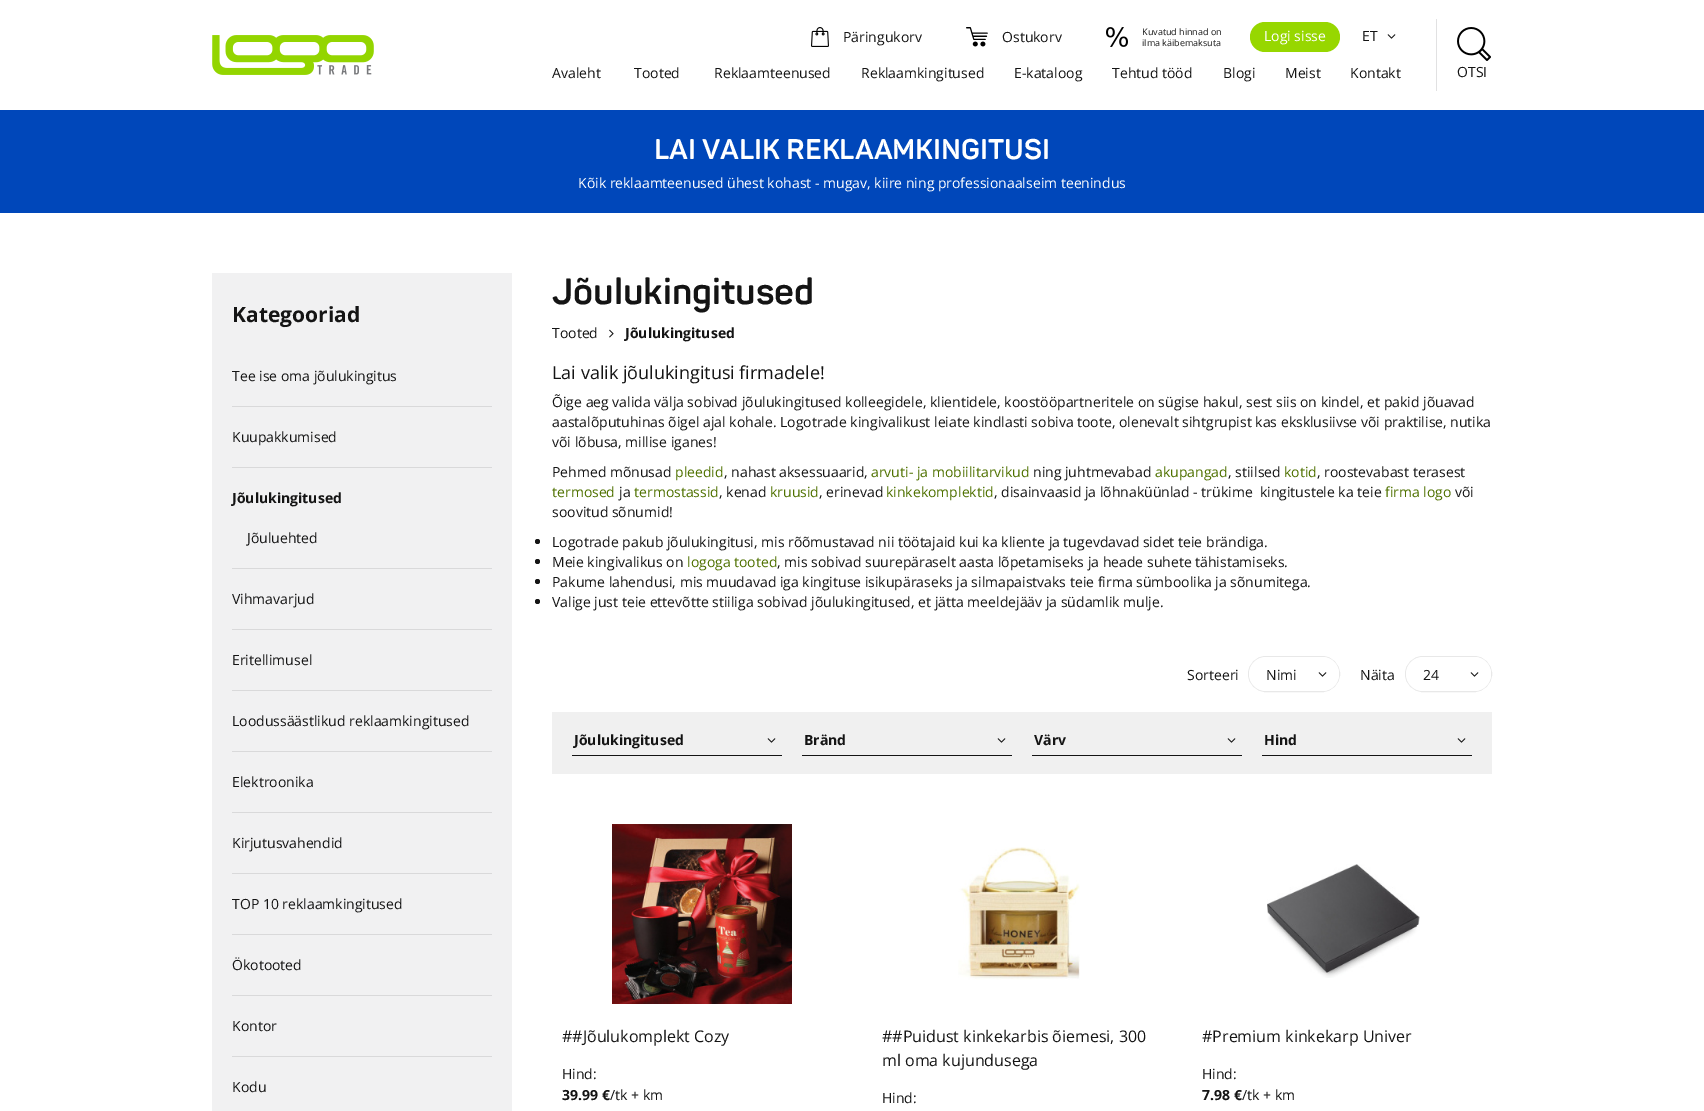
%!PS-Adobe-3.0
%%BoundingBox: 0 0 1704 1111
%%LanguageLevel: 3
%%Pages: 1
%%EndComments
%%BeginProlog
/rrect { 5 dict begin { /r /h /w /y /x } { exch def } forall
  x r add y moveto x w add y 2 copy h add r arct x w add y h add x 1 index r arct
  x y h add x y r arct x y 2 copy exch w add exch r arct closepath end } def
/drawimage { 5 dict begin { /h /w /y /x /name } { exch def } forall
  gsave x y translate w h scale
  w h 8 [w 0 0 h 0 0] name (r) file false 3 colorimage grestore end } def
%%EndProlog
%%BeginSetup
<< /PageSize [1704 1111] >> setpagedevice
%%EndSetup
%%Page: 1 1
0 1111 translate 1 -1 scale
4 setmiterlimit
1 setgray
0 0 1704 1111 rectfill
(images/1.raw) 212 35 162 40 drawimage
(images/2.raw) 811 27 18 20 drawimage
(images/3.raw) 966 27 22 20 drawimage
(images/4.raw) 1106 27 22 20 drawimage
0.592 0.843 0 setrgbcolor
1250 22 90 30 15 rrect fill
(images/5.raw) 1387 34 9 5 drawimage
0.882 0.882 0.886 setrgbcolor
1436 19 1 72 rectfill
(images/6.raw) 1457 27 34 34 drawimage
0 0.278 0.729 setrgbcolor
0 110 1704 103 rectfill
0.945 0.945 0.949 setrgbcolor
212 273 300 838 rectfill
0.851 0.851 0.855 setrgbcolor
232 406 260 1 rectfill
232 467 260 1 rectfill
232 568 260 1 rectfill
232 629 260 1 rectfill
232 690 260 1 rectfill
232 751 260 1 rectfill
232 812 260 1 rectfill
232 873 260 1 rectfill
232 934 260 1 rectfill
232 995 260 1 rectfill
232 1056 260 1 rectfill
(images/7.raw) 609 329 5 9 drawimage
0.078 setgray
newpath 537.5 541.5 2.5 0 360 arc closepath fill
newpath 537.5 561.5 2.5 0 360 arc closepath fill
newpath 537.5 581.5 2.5 0 360 arc closepath fill
newpath 537.5 601.5 2.5 0 360 arc closepath fill
0.91 setgray
1248.5 656.5 91 35 17.5 rrect stroke
1 setgray
1249 657 90 34 17 rrect fill
newpath 1309 657 moveto 1322 657 lineto 1331.5 657 1339 664.5 1339 674 curveto 1339 683.5 1331.5 691 1322 691 curveto 1309 691 lineto closepath fill
(images/5.raw) 1318 672 9 5 drawimage
0.91 setgray
1405.5 656.5 86 35 17.5 rrect stroke
1 setgray
1406 657 85 34 17 rrect fill
newpath 1461 657 moveto 1474 657 lineto 1483.5 657 1491 664.5 1491 674 curveto 1491 683.5 1483.5 691 1474 691 curveto 1461 691 lineto closepath fill
(images/5.raw) 1470 672 9 5 drawimage
0.941 setgray
552 712 940 62 rectfill
0.078 setgray
572 755 210 1 rectfill
(images/8.raw) 767 738 9 5 drawimage
802 755 210 1 rectfill
(images/8.raw) 997 738 9 5 drawimage
1032 755 210 1 rectfill
(images/8.raw) 1227 738 9 5 drawimage
1262 755 210 1 rectfill
(images/8.raw) 1457 738 9 5 drawimage
(images/9.raw) 612 824 180 180 drawimage
(images/10.raw) 958 847 122 133 drawimage
(images/11.raw) 1267 864 153 114 drawimage
/OpenSans-Regular [14 0 0 -14 0 0] selectfont
843 42 moveto (Päringukorv) show
1002 42 moveto (Ostukorv) show
/OpenSans-Regular [9 0 0 -9 0 0] selectfont
1142 35 moveto (Kuvatud hinnad on) show
1142 46 moveto (ilma käibemaksuta) show
/OpenSans-Regular [14 0 0 -14 0 0] selectfont
1 setgray
1264 41 moveto (Logi sisse) show
0.078 setgray
1362 41 moveto (ET) show
552 78 moveto (Avaleht) show
634 78 moveto (Tooted) show
714 78 moveto (Reklaamteenused) show
861 78 moveto (Reklaamkingitused) show
1014 78 moveto (E-kataloog) show
1112 78 moveto (Tehtud tööd) show
1223 78 moveto (Blogi) show
1285 78 moveto (Meist) show
1350 78 moveto (Kontakt) show
1457 77 moveto (OTSI) show
/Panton-Bold [28 0 0 -28 0 0] selectfont
1 setgray
654 159 moveto (LAI VALIK REKLAAMKINGITUSI) show
/OpenSans-Regular [14 0 0 -14 0 0] selectfont
578 188 moveto (Kõik reklaamteenused ühest kohast - mugav, kiire ning professionaalseim teenindus) show
/OpenSans-Bold [21 0 0 -21 0 0] selectfont
0.078 setgray
232 322 moveto (Kategooriad) show
/OpenSans-Regular [14 0 0 -14 0 0] selectfont
232 381 moveto (Tee ise oma jõulukingitus) show
232 442 moveto (Kuupakkumised) show
/OpenSans-Bold [14 0 0 -14 0 0] selectfont
232 503 moveto (Jõulukingitused) show
/OpenSans-Regular [14 0 0 -14 0 0] selectfont
247 543 moveto (Jõuluehted) show
232 604 moveto (Vihmavarjud) show
232 665 moveto (Eritellimusel) show
232 726 moveto (Loodussäästlikud reklaamkingitused) show
232 787 moveto (Elektroonika) show
232 848 moveto (Kirjutusvahendid) show
232 909 moveto (TOP 10 reklaamkingitused) show
232 970 moveto (Ökotooted) show
232 1031 moveto (Kontor) show
232 1092 moveto (Kodu) show
/Panton-Bold [36 0 0 -36 0 0] selectfont
552 304 moveto (Jõulukingitused) show
/OpenSans-Regular [14 0 0 -14 0 0] selectfont
552 338 moveto (Tooted) show
/OpenSans-Bold [14 0 0 -14 0 0] selectfont
625 338 moveto (Jõulukingitused) show
/OpenSans-Regular [18 0 0 -18 0 0] selectfont
552 379 moveto (Lai valik jõulukingitusi firmadele!) show
/OpenSans-Regular [14 0 0 -14 0 0] selectfont
552 407 moveto (Õige aeg valida välja sobivad jõulukingitused kolleegidele, klientidele, koostööpartneritele on sügise hakul, sest siis on kindel, et pakid jõuavad) show
552 427 moveto (aastalõputuhinas õigel ajal kohale. Logotrade kingivalikust leiate kindlasti sobiva toote, olenevalt sihtgrupist kas eksklusiivse või praktilise, nutika) show
552 447 moveto (või lõbusa, millise iganes!) show
552 477 moveto (Pehmed mõnusad) show
0.31 0.443 0 setrgbcolor
675 477 moveto (pleedid) show
0.078 setgray
724 477 moveto (, nahast aksessuaarid,) show
0.31 0.443 0 setrgbcolor
871 477 moveto (arvuti- ja mobiilitarvikud) show
0.078 setgray
1033 477 moveto (ning juhtmevabad) show
0.31 0.443 0 setrgbcolor
1155 477 moveto (akupangad) show
0.078 setgray
1228 477 moveto (, stiilsed) show
0.31 0.443 0 setrgbcolor
1284 477 moveto (kotid) show
0.078 setgray
1317 477 moveto (, roostevabast terasest) show
0.31 0.443 0 setrgbcolor
552 497 moveto (termosed) show
0.078 setgray
619 497 moveto (ja) show
0.31 0.443 0 setrgbcolor
634 497 moveto (termostassid) show
0.078 setgray
719 497 moveto (, kenad) show
0.31 0.443 0 setrgbcolor
770 497 moveto (kruusid) show
0.078 setgray
819 497 moveto (, erinevad) show
0.31 0.443 0 setrgbcolor
886 497 moveto (kinkekomplektid) show
0.078 setgray
994 497 moveto (, disainvaasid ja lõhnaküünlad - trükime  kingitustele ka teie) show
0.31 0.443 0 setrgbcolor
1385 497 moveto (firma logo) show
0.078 setgray
1455 497 moveto (või) show
552 517 moveto (soovitud sõnumid!) show
552 547 moveto (Logotrade pakub jõulukingitusi, mis rõõmustavad nii töötajaid kui ka kliente ja tugevdavad sidet teie brändiga.) show
552 567 moveto (Meie kingivalikus on) show
0.31 0.443 0 setrgbcolor
687 567 moveto (logoga tooted) show
0.078 setgray
777 567 moveto (, mis sobivad suurepäraselt aasta lõpetamiseks ja heade suhete tähistamiseks.) show
552 587 moveto (Pakume lahendusi, mis muudavad iga kingituse isikupäraseks ja silmapaistvaks teie firma sümboolika ja sõnumitega.) show
552 607 moveto (Valige just teie ettevõtte stiiliga sobivad jõulukingitused, et jätta meeldejääv ja südamlik mulje.) show
1187 680 moveto (Sorteeri) show
1266 680 moveto (Nimi) show
1360 680 moveto (Näita) show
1423 680 moveto (24) show
/OpenSans-Bold [14 0 0 -14 0 0] selectfont
574 745 moveto (Jõulukingitused) show
804 745 moveto (Bränd) show
1034 745 moveto (Värv) show
1264 745 moveto (Hind) show
/OpenSans-Regular [16 0 0 -16 0 0] selectfont
562 1042 moveto (##Jõulukomplekt Cozy) show
/OpenSans-Regular [14 0 0 -14 0 0] selectfont
562 1079 moveto (Hind:) show
/OpenSans-Bold [14 0 0 -14 0 0] selectfont
562 1100 moveto (39.99 €) show
/OpenSans-Regular [14 0 0 -14 0 0] selectfont
610 1100 moveto (/tk + km) show
/OpenSans-Regular [16 0 0 -16 0 0] selectfont
882 1042 moveto (##Puidust kinkekarbis õiemesi, 300) show
882 1066 moveto (ml oma kujundusega) show
/OpenSans-Regular [14 0 0 -14 0 0] selectfont
882 1103 moveto (Hind:) show
/OpenSans-Regular [16 0 0 -16 0 0] selectfont
1202 1042 moveto (#Premium kinkekarp Univer) show
/OpenSans-Regular [14 0 0 -14 0 0] selectfont
1202 1079 moveto (Hind:) show
/OpenSans-Bold [14 0 0 -14 0 0] selectfont
1202 1100 moveto (7.98 €) show
/OpenSans-Regular [14 0 0 -14 0 0] selectfont
1242 1100 moveto (/tk + km) show
showpage
%%EOF
